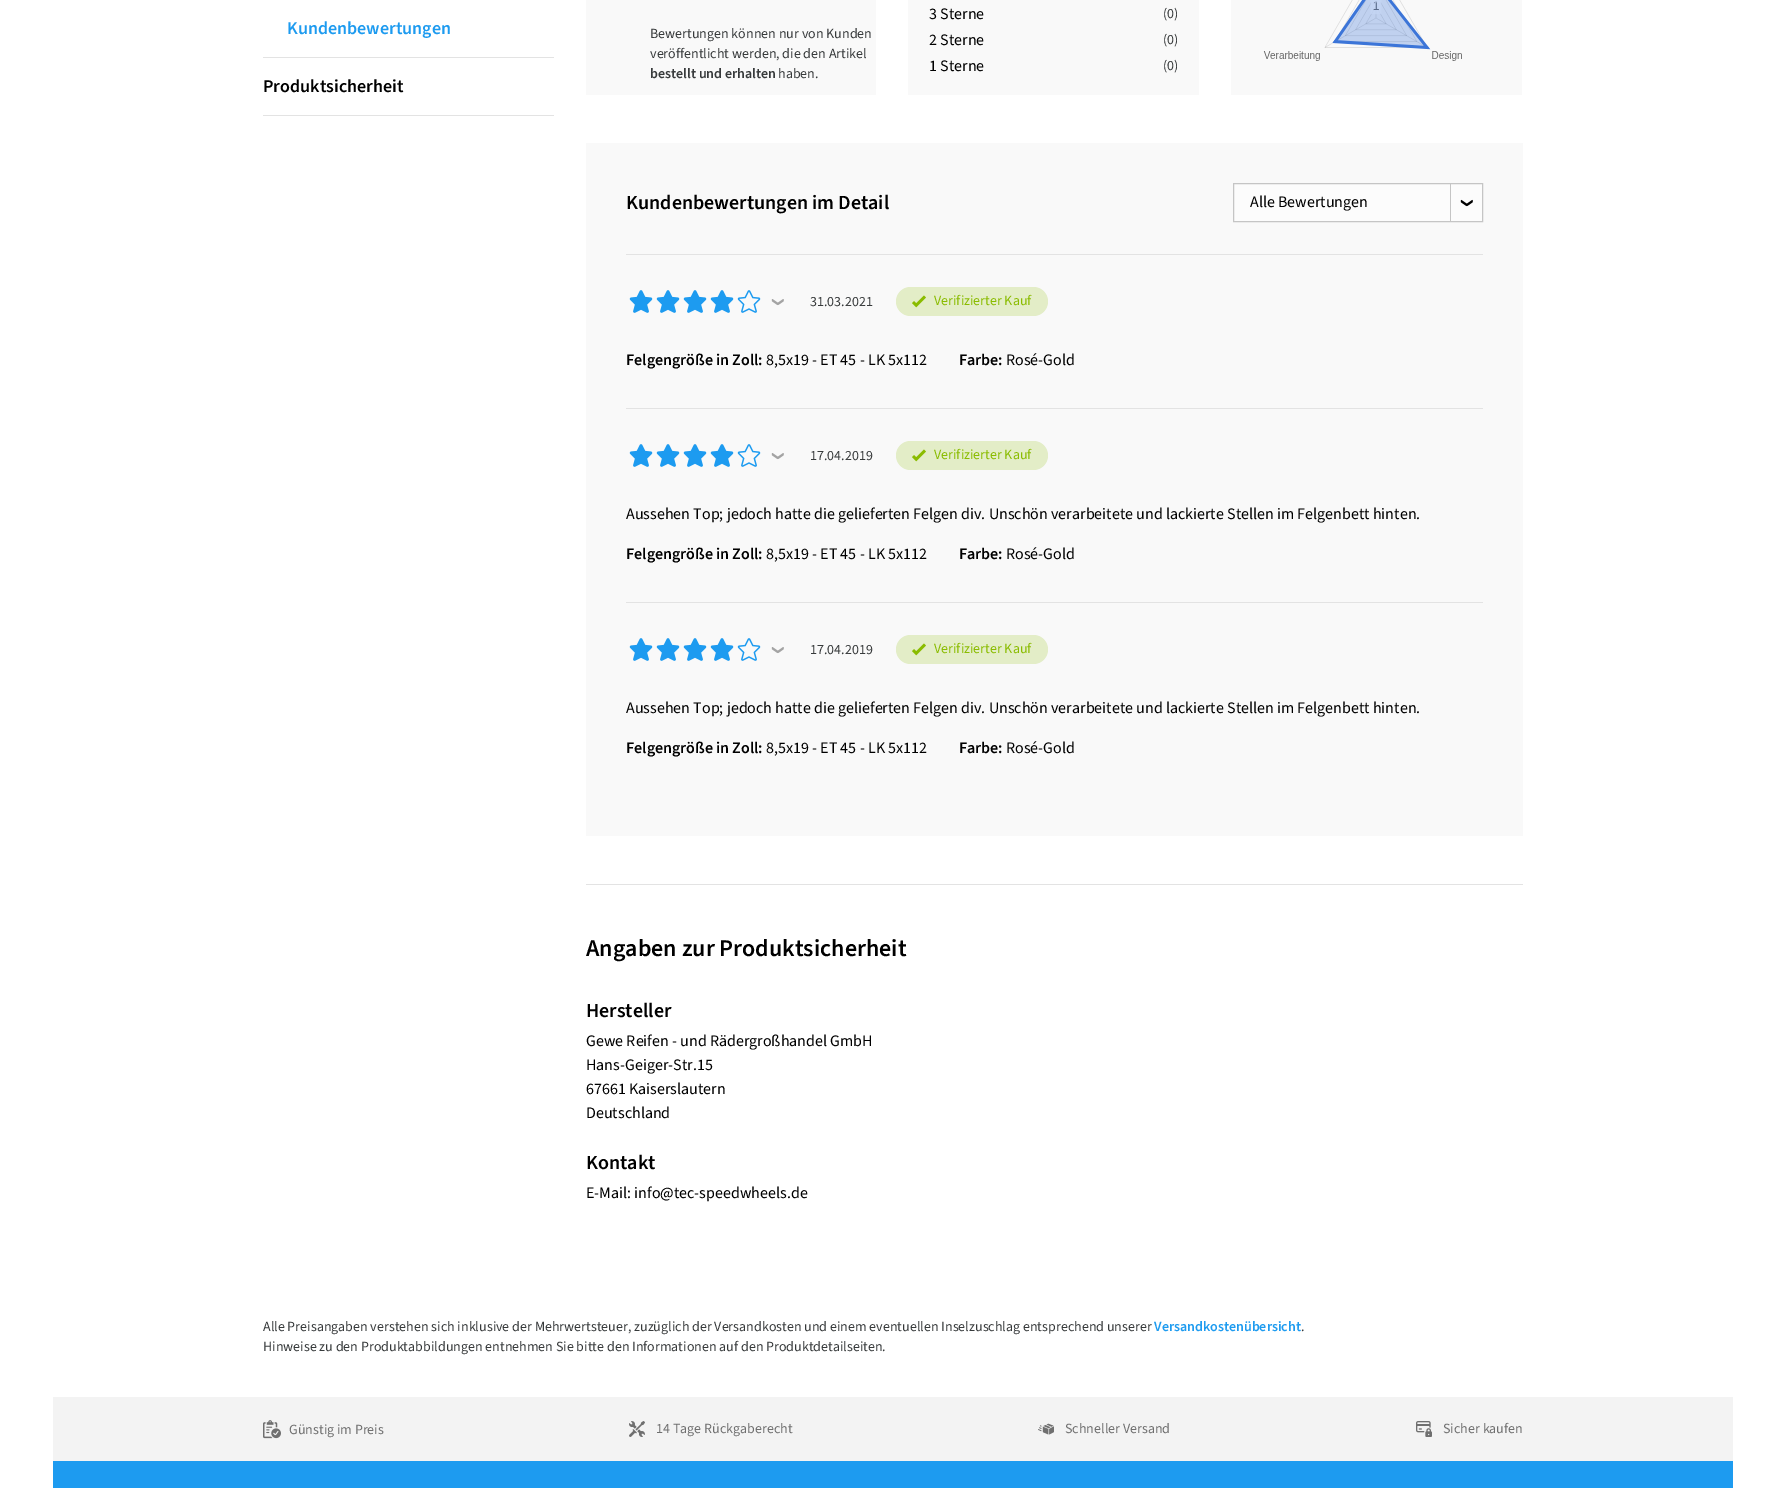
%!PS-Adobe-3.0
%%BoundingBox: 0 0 1785 1488
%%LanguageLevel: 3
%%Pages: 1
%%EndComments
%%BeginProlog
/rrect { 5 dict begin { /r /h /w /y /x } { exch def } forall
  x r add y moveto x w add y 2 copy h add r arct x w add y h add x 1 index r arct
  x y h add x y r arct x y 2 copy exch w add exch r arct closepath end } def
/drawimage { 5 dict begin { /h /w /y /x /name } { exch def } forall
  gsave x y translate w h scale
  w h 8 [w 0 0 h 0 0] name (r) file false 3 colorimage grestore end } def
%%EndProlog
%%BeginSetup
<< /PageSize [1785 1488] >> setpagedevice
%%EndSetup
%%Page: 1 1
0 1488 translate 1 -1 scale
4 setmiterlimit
1 setgray
0 0 1785 1488 rectfill
0.89 setgray
263 57 291 1 rectfill
263 115 291 1 rectfill
0.976 setgray
586 0 290 95 rectfill
908 0 291 95 rectfill
1231 0 291 95 rectfill
(images/1.raw) 1263 0 199 61 drawimage
586 143 937 693 rectfill
0.988 setgray
newpath 1233.5 183.5 moveto 1482.5 183.5 lineto 1482.5 221.5 lineto 1233.5 221.5 lineto closepath gsave fill grestore
0.773 setgray
stroke
1450 183 1 39 rectfill
(images/2.raw) 1460 199 13 8 drawimage
0.89 setgray
626 254 857 1 rectfill
(images/3.raw) 771 299 13 7 drawimage
(images/4.raw) 629 290 24 23 drawimage
(images/4.raw) 656 290 24 23 drawimage
(images/4.raw) 683 290 24 23 drawimage
(images/4.raw) 710 290 24 23 drawimage
(images/5.raw) 737 290 24 23 drawimage
0.89 0.929 0.78 setrgbcolor
896 287 152 29 14.5 rrect fill
(images/6.raw) 912 295 14 13 drawimage
0.89 setgray
626 408 857 1 rectfill
(images/3.raw) 771 453 13 7 drawimage
(images/4.raw) 629 444 24 23 drawimage
(images/4.raw) 656 444 24 23 drawimage
(images/4.raw) 683 444 24 23 drawimage
(images/4.raw) 710 444 24 23 drawimage
(images/5.raw) 737 444 24 23 drawimage
0.89 0.929 0.78 setrgbcolor
896 441 152 29 14.5 rrect fill
(images/6.raw) 912 449 14 13 drawimage
0.89 setgray
626 602 857 1 rectfill
(images/3.raw) 771 647 13 7 drawimage
(images/4.raw) 629 638 24 23 drawimage
(images/4.raw) 656 638 24 23 drawimage
(images/4.raw) 683 638 24 23 drawimage
(images/4.raw) 710 638 24 23 drawimage
(images/5.raw) 737 638 24 23 drawimage
0.89 0.929 0.78 setrgbcolor
896 635 152 29 14.5 rrect fill
(images/6.raw) 912 643 14 13 drawimage
0.89 setgray
586 884 937 1 rectfill
0.953 setgray
53 1397 1680 64 rectfill
(images/7.raw) 263 1420 18 19 drawimage
(images/8.raw) 629 1421 16 16 drawimage
(images/9.raw) 1038 1423 16 12 drawimage
(images/10.raw) 1416 1421 16 16 drawimage
0.114 0.608 0.941 setrgbcolor
53 1461 1680 27 rectfill
/SourceSans3-SemiBold [18 0 0 -18 0 0] selectfont
287 34 moveto (Kundenbewertungen) show
0 setgray
263 92 moveto (Produktsicherheit) show
/SourceSans3-Regular [14 0 0 -14 0 0] selectfont
0.216 0.227 0.231 setrgbcolor
650 38 moveto (Bewertungen können nur von Kunden) show
650 58 moveto (veröffentlicht werden, die den Artikel) show
/SourceSans3-SemiBold [14 0 0 -14 0 0] selectfont
650 78 moveto (bestellt und erhalten) show
/SourceSans3-Regular [14 0 0 -14 0 0] selectfont
778 78 moveto (haben.) show
/SourceSans3-Regular [16 0 0 -16 0 0] selectfont
0 setgray
929 19 moveto (3 Sterne) show
/SourceSans3-Regular [14 0 0 -14 0 0] selectfont
0.216 0.227 0.231 setrgbcolor
1163 18 moveto (\(0\)) show
/SourceSans3-Regular [16 0 0 -16 0 0] selectfont
0 setgray
929 45 moveto (2 Sterne) show
/SourceSans3-Regular [14 0 0 -14 0 0] selectfont
0.216 0.227 0.231 setrgbcolor
1163 44 moveto (\(0\)) show
/SourceSans3-Regular [16 0 0 -16 0 0] selectfont
0 setgray
929 71 moveto (1 Sterne) show
/SourceSans3-Regular [14 0 0 -14 0 0] selectfont
0.216 0.227 0.231 setrgbcolor
1163 70 moveto (\(0\)) show
/SourceSans3-SemiBold [20 0 0 -20 0 0] selectfont
0 setgray
626 209 moveto (Kundenbewertungen im Detail) show
/SourceSans3-Regular [16 0 0 -16 0 0] selectfont
1250 207 moveto (Alle Bewertungen) show
/SourceSans3-Regular [14 0 0 -14 0 0] selectfont
0.216 0.227 0.231 setrgbcolor
810 306 moveto (31.03.2021) show
0.541 0.737 0 setrgbcolor
934 305 moveto (Verifizierter Kauf) show
/SourceSans3-SemiBold [16 0 0 -16 0 0] selectfont
0 setgray
626 365 moveto (Felgengröße in Zoll:) show
/SourceSans3-Regular [16 0 0 -16 0 0] selectfont
766 365 moveto (8,5x19 - ET 45 - LK 5x112) show
/SourceSans3-SemiBold [16 0 0 -16 0 0] selectfont
959 365 moveto (Farbe:) show
/SourceSans3-Regular [16 0 0 -16 0 0] selectfont
1006 365 moveto (Rosé-Gold) show
/SourceSans3-Regular [14 0 0 -14 0 0] selectfont
0.216 0.227 0.231 setrgbcolor
810 460 moveto (17.04.2019) show
0.541 0.737 0 setrgbcolor
934 459 moveto (Verifizierter Kauf) show
/SourceSans3-Regular [16 0 0 -16 0 0] selectfont
0 setgray
626 519 moveto (Aussehen Top; jedoch hatte die gelieferten Felgen div. Unschön verarbeitete und lackierte Stellen im Felgenbett hinten.) show
/SourceSans3-SemiBold [16 0 0 -16 0 0] selectfont
626 559 moveto (Felgengröße in Zoll:) show
/SourceSans3-Regular [16 0 0 -16 0 0] selectfont
766 559 moveto (8,5x19 - ET 45 - LK 5x112) show
/SourceSans3-SemiBold [16 0 0 -16 0 0] selectfont
959 559 moveto (Farbe:) show
/SourceSans3-Regular [16 0 0 -16 0 0] selectfont
1006 559 moveto (Rosé-Gold) show
/SourceSans3-Regular [14 0 0 -14 0 0] selectfont
0.216 0.227 0.231 setrgbcolor
810 654 moveto (17.04.2019) show
0.541 0.737 0 setrgbcolor
934 653 moveto (Verifizierter Kauf) show
/SourceSans3-Regular [16 0 0 -16 0 0] selectfont
0 setgray
626 713 moveto (Aussehen Top; jedoch hatte die gelieferten Felgen div. Unschön verarbeitete und lackierte Stellen im Felgenbett hinten.) show
/SourceSans3-SemiBold [16 0 0 -16 0 0] selectfont
626 753 moveto (Felgengröße in Zoll:) show
/SourceSans3-Regular [16 0 0 -16 0 0] selectfont
766 753 moveto (8,5x19 - ET 45 - LK 5x112) show
/SourceSans3-SemiBold [16 0 0 -16 0 0] selectfont
959 753 moveto (Farbe:) show
/SourceSans3-Regular [16 0 0 -16 0 0] selectfont
1006 753 moveto (Rosé-Gold) show
/SourceSans3-SemiBold [24 0 0 -24 0 0] selectfont
586 956 moveto (Angaben zur Produktsicherheit) show
/SourceSans3-SemiBold [20 0 0 -20 0 0] selectfont
586 1017 moveto (Hersteller) show
/SourceSans3-Regular [16 0 0 -16 0 0] selectfont
586 1046 moveto (Gewe Reifen - und Rädergroßhandel GmbH) show
586 1070 moveto (Hans-Geiger-Str.15) show
586 1094 moveto (67661 Kaiserslautern) show
586 1118 moveto (Deutschland) show
/SourceSans3-SemiBold [20 0 0 -20 0 0] selectfont
586 1169 moveto (Kontakt) show
/SourceSans3-Regular [16 0 0 -16 0 0] selectfont
586 1198 moveto (E-Mail: info@tec-speedwheels.de) show
/SourceSans3-Regular [14 0 0 -14 0 0] selectfont
0.216 0.227 0.231 setrgbcolor
263 1331 moveto (Alle Preisangaben verstehen sich inklusive der Mehrwertsteuer, zuzüglich der Versandkosten und einem eventuellen Inselzuschlag entsprechend unserer) show
/SourceSans3-SemiBold [14 0 0 -14 0 0] selectfont
0.114 0.608 0.941 setrgbcolor
1154 1331 moveto (Versandkostenübersicht) show
/SourceSans3-Regular [14 0 0 -14 0 0] selectfont
0.216 0.227 0.231 setrgbcolor
1301 1331 moveto (.) show
263 1351 moveto (Hinweise zu den Produktabbildungen entnehmen Sie bitte den Informationen auf den Produktdetailseiten.) show
0.435 setgray
289 1434 moveto (Günstig im Preis) show
656 1433 moveto (14 Tage Rückgaberecht) show
1065 1433 moveto (Schneller Versand) show
1443 1433 moveto (Sicher kaufen) show
showpage
%%EOF
